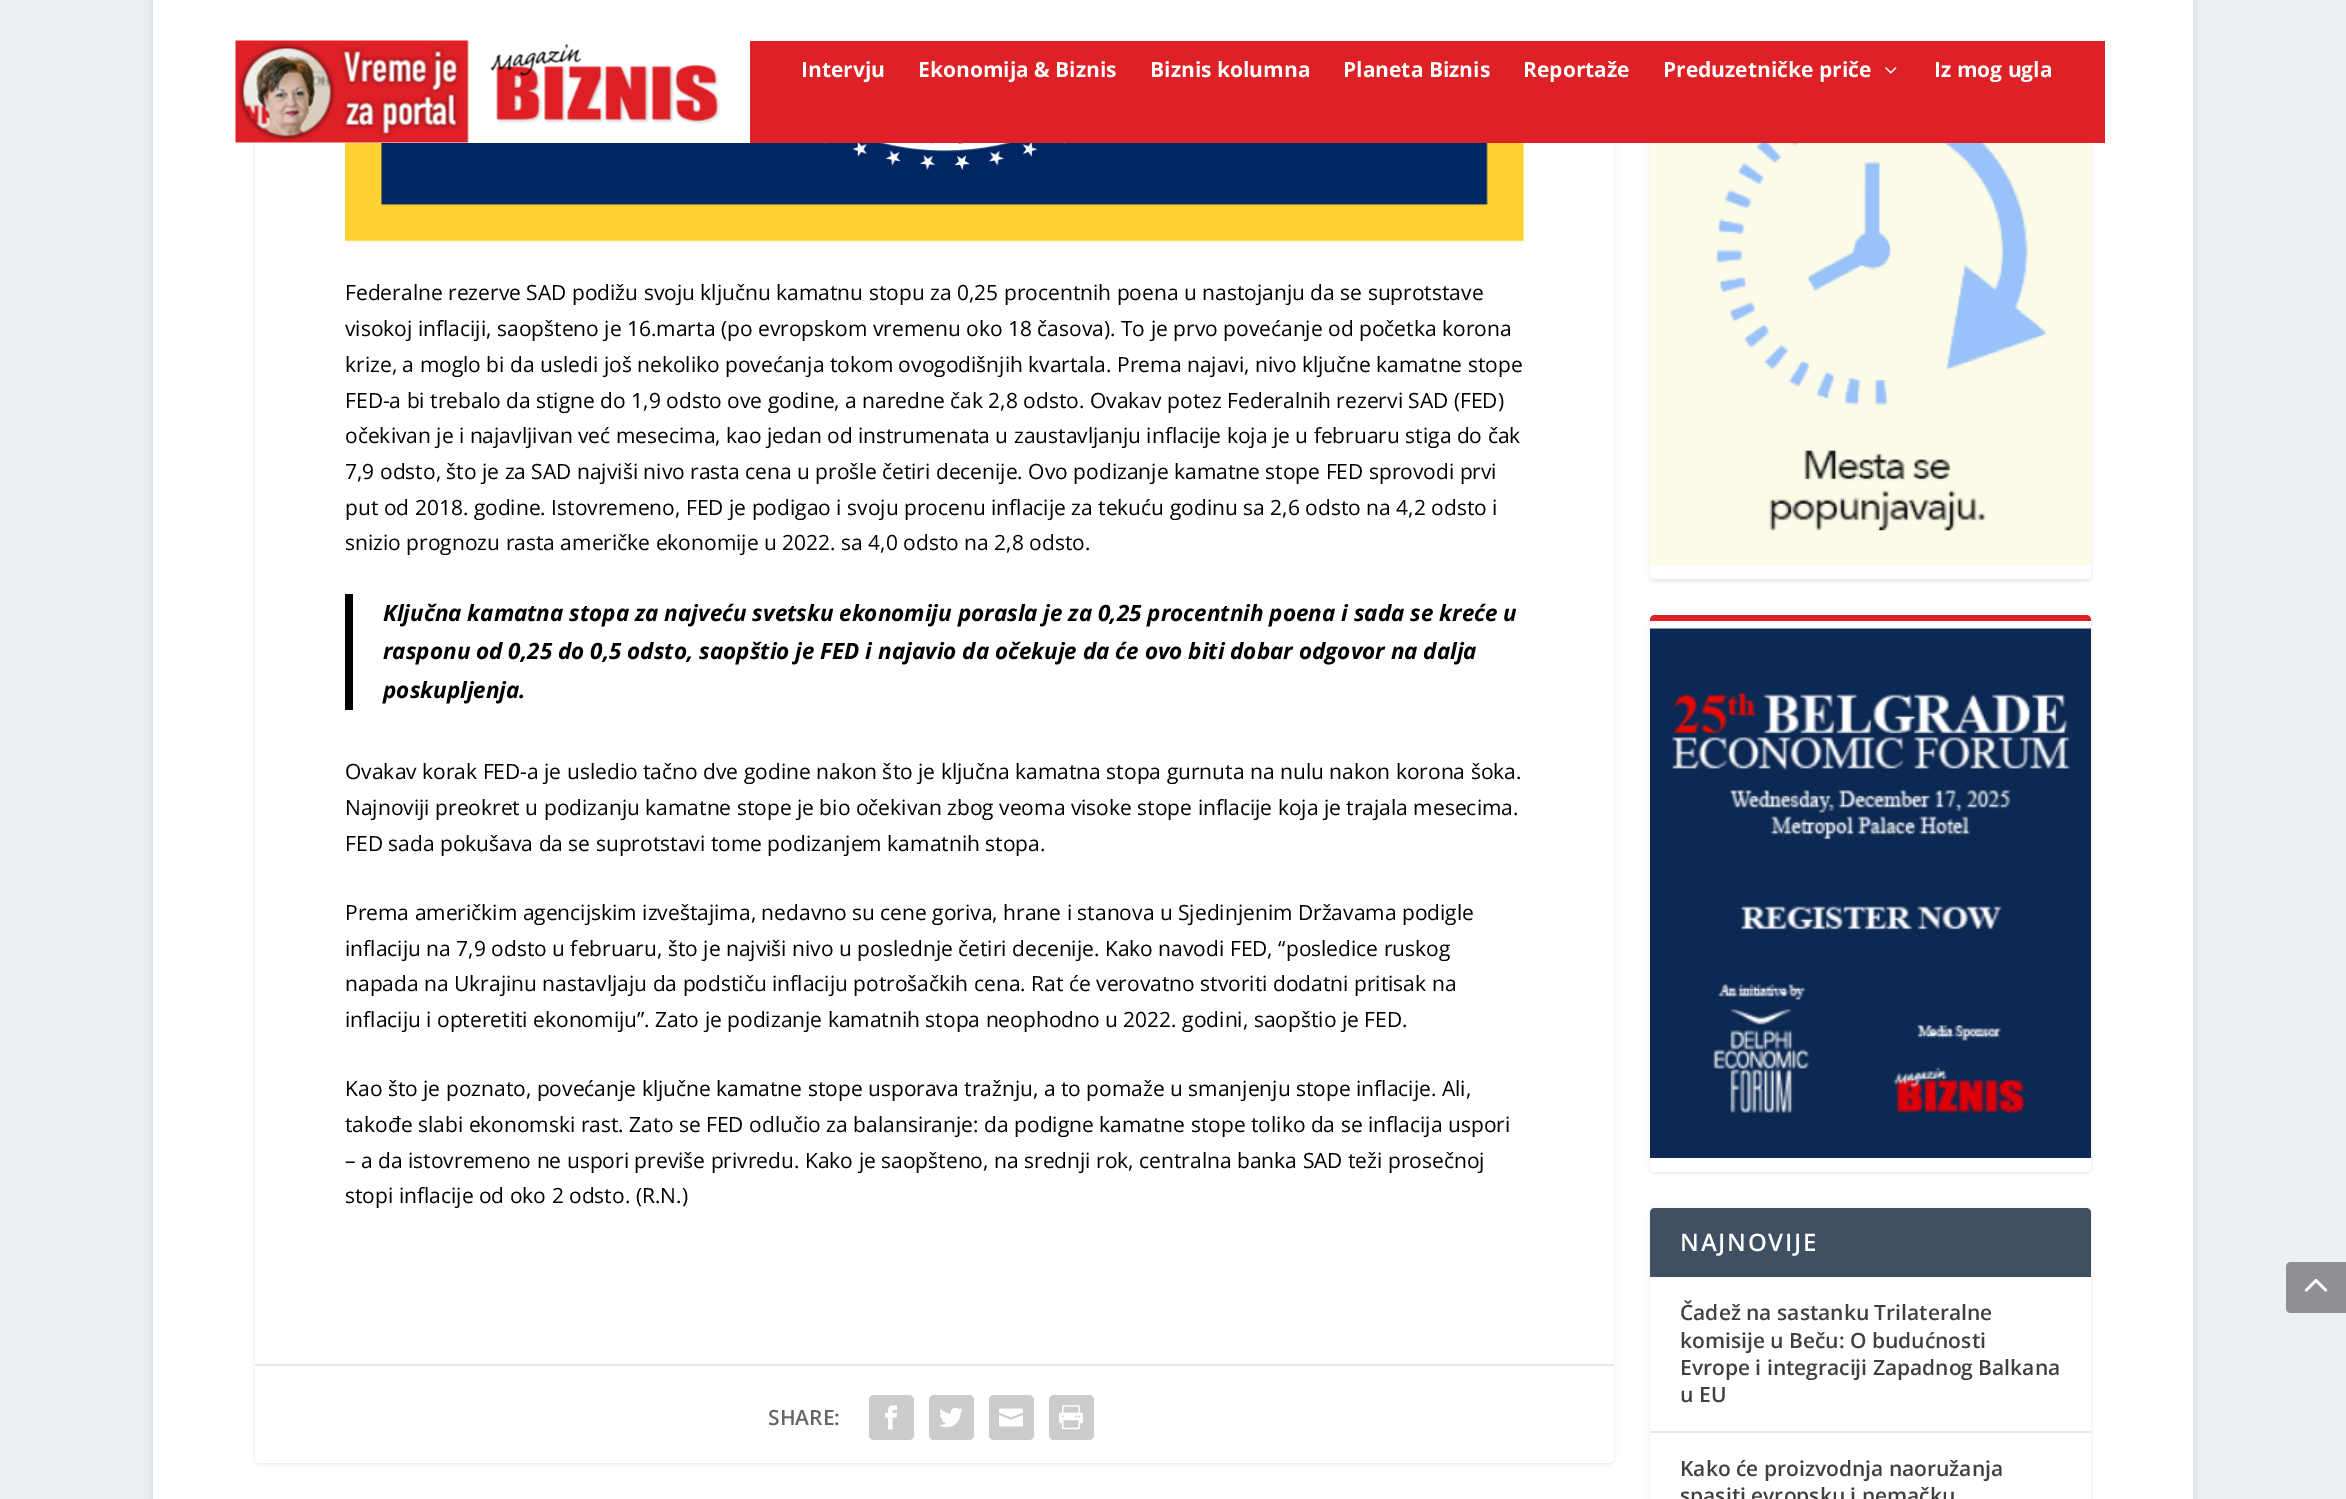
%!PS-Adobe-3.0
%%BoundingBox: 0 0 2346 1499
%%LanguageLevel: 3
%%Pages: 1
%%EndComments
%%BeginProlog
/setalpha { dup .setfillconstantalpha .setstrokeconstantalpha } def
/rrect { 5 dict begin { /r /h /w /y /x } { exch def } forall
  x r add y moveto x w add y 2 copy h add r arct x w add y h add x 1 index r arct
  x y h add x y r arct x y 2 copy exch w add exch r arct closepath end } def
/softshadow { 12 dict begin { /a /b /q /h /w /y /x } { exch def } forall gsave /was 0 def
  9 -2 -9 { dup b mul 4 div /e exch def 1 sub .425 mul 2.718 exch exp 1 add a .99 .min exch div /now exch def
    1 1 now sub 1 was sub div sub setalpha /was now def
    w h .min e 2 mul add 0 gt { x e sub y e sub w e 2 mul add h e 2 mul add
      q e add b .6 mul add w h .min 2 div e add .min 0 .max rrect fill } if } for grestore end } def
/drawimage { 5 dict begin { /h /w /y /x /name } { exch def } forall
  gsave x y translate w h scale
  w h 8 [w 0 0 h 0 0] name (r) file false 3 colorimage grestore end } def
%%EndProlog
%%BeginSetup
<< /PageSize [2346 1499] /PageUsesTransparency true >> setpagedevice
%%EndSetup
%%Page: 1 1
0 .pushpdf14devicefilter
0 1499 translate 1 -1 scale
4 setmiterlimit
0.925 0.941 0.961 setrgbcolor
0 0 2346 1499 rectfill
0 setgray
153 -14 2040 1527 0 4.5 0.1 softshadow
1 setgray
153 0 2040 1499 rectfill
0 setgray
255 -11 1359 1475 5 2 0.1 softshadow
1 setgray
255 -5 1359 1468 5 rrect fill
0 setgray
1650 24 441 557 5 2 0.1 softshadow
1 setgray
1650 23 441 556 5 rrect fill
252 0 1842 143 rectfill
(images/1.raw) 235 40 234 103 drawimage
(images/2.raw) 490 44 230 80 drawimage
0.871 0.125 0.153 setrgbcolor
750 41 1355 102 rectfill
(images/3.raw) 1885 67 12 7 drawimage
(images/4.raw) 345 143 1179 99 drawimage
0 setgray
345 594 8 116 rectfill
0.902 setgray
255 1364 1359 2 rectfill
0.8 setgray
869 1395 45 45 5 rrect fill
(images/5.raw) 885 1405 12 25 drawimage
929 1395 45 45 5 rrect fill
(images/6.raw) 939 1407 24 21 drawimage
989 1395 45 45 5 rrect fill
(images/7.raw) 999 1408 24 19 drawimage
1049 1395 45 45 5 rrect fill
(images/8.raw) 1059 1405 24 25 drawimage
(images/9.raw) 1650 143 441 423 drawimage
0 setgray
1650 617 441 556 5 2 0.1 softshadow
1 setgray
1650 615 441 557 5 rrect fill
0.871 0.125 0.153 setrgbcolor
newpath 1655 615 moveto 2086 615 lineto 2089 615 2091 617 2091 620 curveto 2091 621 lineto 1650 621 lineto 1650 620 lineto 1650 617 1652 615 1655 615 curveto closepath fill
(images/10.raw) 1650 628 441 530 drawimage
gsave
newpath 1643 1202 moveto 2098 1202 lineto 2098 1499 lineto 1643 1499 lineto closepath 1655 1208 moveto 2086 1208 lineto 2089 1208 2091 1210 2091 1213 curveto 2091 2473 lineto 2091 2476 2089 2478 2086 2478 curveto 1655 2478 lineto 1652 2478 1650 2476 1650 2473 curveto 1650 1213 lineto 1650 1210 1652 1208 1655 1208 curveto closepath eoclip newpath
0 setgray
1650 1209 441 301 5 2 0.1 softshadow
grestore
0.243 0.314 0.384 setrgbcolor
newpath 1655 1208 moveto 2086 1208 lineto 2089 1208 2091 1210 2091 1213 curveto 2091 1277 lineto 1650 1277 lineto 1650 1213 lineto 1650 1210 1652 1208 1655 1208 curveto closepath fill
0.902 setgray
1650 1431 441 2 rectfill
0.557 0.565 0.576 setrgbcolor
newpath 2291 1262 moveto 2346 1262 lineto 2346 1313 lineto 2291 1313 lineto 2288 1313 2286 1311 2286 1308 curveto 2286 1267 lineto 2286 1264 2288 1262 2291 1262 curveto closepath fill
(images/11.raw) 2304 1279 24 13 drawimage
/OpenSans-Bold [21 0 0 -21 0 0] selectfont
1 setgray
801 77 moveto (Intervju) show
918 77 moveto (Ekonomija & Biznis) show
1150 77 moveto (Biznis kolumna) show
1343 77 moveto (Planeta Biznis) show
1523 77 moveto (Reportaže) show
1663 77 moveto (Preduzetničke priče) show
1934 77 moveto (Iz mog ugla) show
/OpenSans-Regular [21 0 0 -21 0 0] selectfont
0 setgray
345 300 moveto (Federalne rezerve SAD podižu svoju klјučnu kamatnu stopu za 0,25 procentnih poena u nastojanju da se suprotstave) show
345 336 moveto (visokoj inflaciji, saopšteno je 16.marta \(po evropskom vremenu oko 18 časova\). To je prvo povećanje od početka korona) show
345 372 moveto (krize, a moglo bi da usledi još nekoliko povećanja tokom ovogodišnjih kvartala. Prema najavi, nivo ključne kamatne stope) show
345 408 moveto (FED-a bi trebalo da stigne do 1,9 odsto ove godine, a naredne čak 2,8 odsto. Ovakav potez Federalnih rezervi SAD \(FED\)) show
345 443 moveto (očekivan je i najavljivan već mesecima, kao jedan od instrumenata u zaustavljanju inflacije koja je u februaru stiga do čak) show
345 479 moveto (7,9 odsto, što je za SAD najviši nivo rasta cena u prošle četiri decenije. Ovo podizanje kamatne stope FED sprovodi prvi) show
345 515 moveto (put od 2018. godine. Istovremeno, FED je podigao i svoju procenu inflacije za tekuću godinu sa 2,6 odsto na 4,2 odsto i) show
345 550 moveto (snizio prognozu rasta američke ekonomije u 2022. sa 4,0 odsto na 2,8 odsto.) show
/OpenSans-BoldItalic [22.5 0 0 -22.5 0 0] selectfont
383 621 moveto (Klјučna kamatna stopa za najveću svetsku ekonomiju porasla je za 0,25 procentnih poena i sada se kreće u) show
383 659 moveto (rasponu od 0,25 do 0,5 odsto, saopštio je FED i najavio da očekuje da će ovo biti dobar odgovor na dalјa) show
383 698 moveto (poskuplјenja.) show
/OpenSans-Regular [21 0 0 -21 0 0] selectfont
345 779 moveto (Ovakav korak FED-a je usledio tačno dve godine nakon što je klјučna kamatna stopa gurnuta na nulu nakon korona šoka.) show
345 815 moveto (Najnoviji preokret u podizanju kamatne stope je bio očekivan zbog veoma visoke stope inflacije koja je trajala mesecima.) show
345 851 moveto (FED sada pokušava da se suprotstavi tome podizanjem kamatnih stopa.) show
345 920 moveto (Prema američkim agencijskim izveštajima, nedavno su cene goriva, hrane i stanova u Sjedinjenim Državama podigle) show
345 956 moveto (inflaciju na 7,9 odsto u februaru, što je najviši nivo u poslednje četiri decenije. Kako navodi FED, “posledice ruskog) show
345 991 moveto (napada na Ukrajinu nastavlјaju da podstiču inflaciju potrošačkih cena. Rat će verovatno stvoriti dodatni pritisak na) show
345 1027 moveto (inflaciju i opteretiti ekonomiju”. Zato je podizanje kamatnih stopa neophodno u 2022. godini, saopštio je FED.) show
345 1096 moveto (Kao što je poznato, povećanje klјučne kamatne stope usporava tražnju, a to pomaže u smanjenju stope inflacije. Ali,) show
345 1132 moveto (takođe slabi ekonomski rast. Zato se FED odlučio za balansiranje: da podigne kamatne stope toliko da se inflacija uspori) show
345 1168 moveto (– a da istovremeno ne uspori previše privredu. Kako je saopšteno, na srednji rok, centralna banka SAD teži prosečnoj) show
345 1203 moveto (stopi inflacije od oko 2 odsto. \(R.N.\)) show
/OpenSans-SemiBold [21 0 0 -21 0 0] selectfont
0.4 setgray
768 1425 moveto (SHARE:) show
/OpenSans-SemiBold [24 0 0 -24 0 0] selectfont
1 setgray
1680 1251 moveto 1.75 0 (NAJNOVIJE) ashow
/OpenSans-SemiBold [21 0 0 -21 0 0] selectfont
0.251 setgray
1680 1320 moveto (Čadež na sastanku Trilateralne) show
1680 1348 moveto (komisije u Beču: O budućnosti) show
1680 1375 moveto (Evrope i integraciji Zapadnog Balkana) show
1680 1402 moveto (u EU) show
1680 1476 moveto (Kako će proizvodnja naoružanja) show
1680 1503 moveto (spasiti evropsku i nemačku) show
.poppdf14devicefilter showpage
%%EOF
